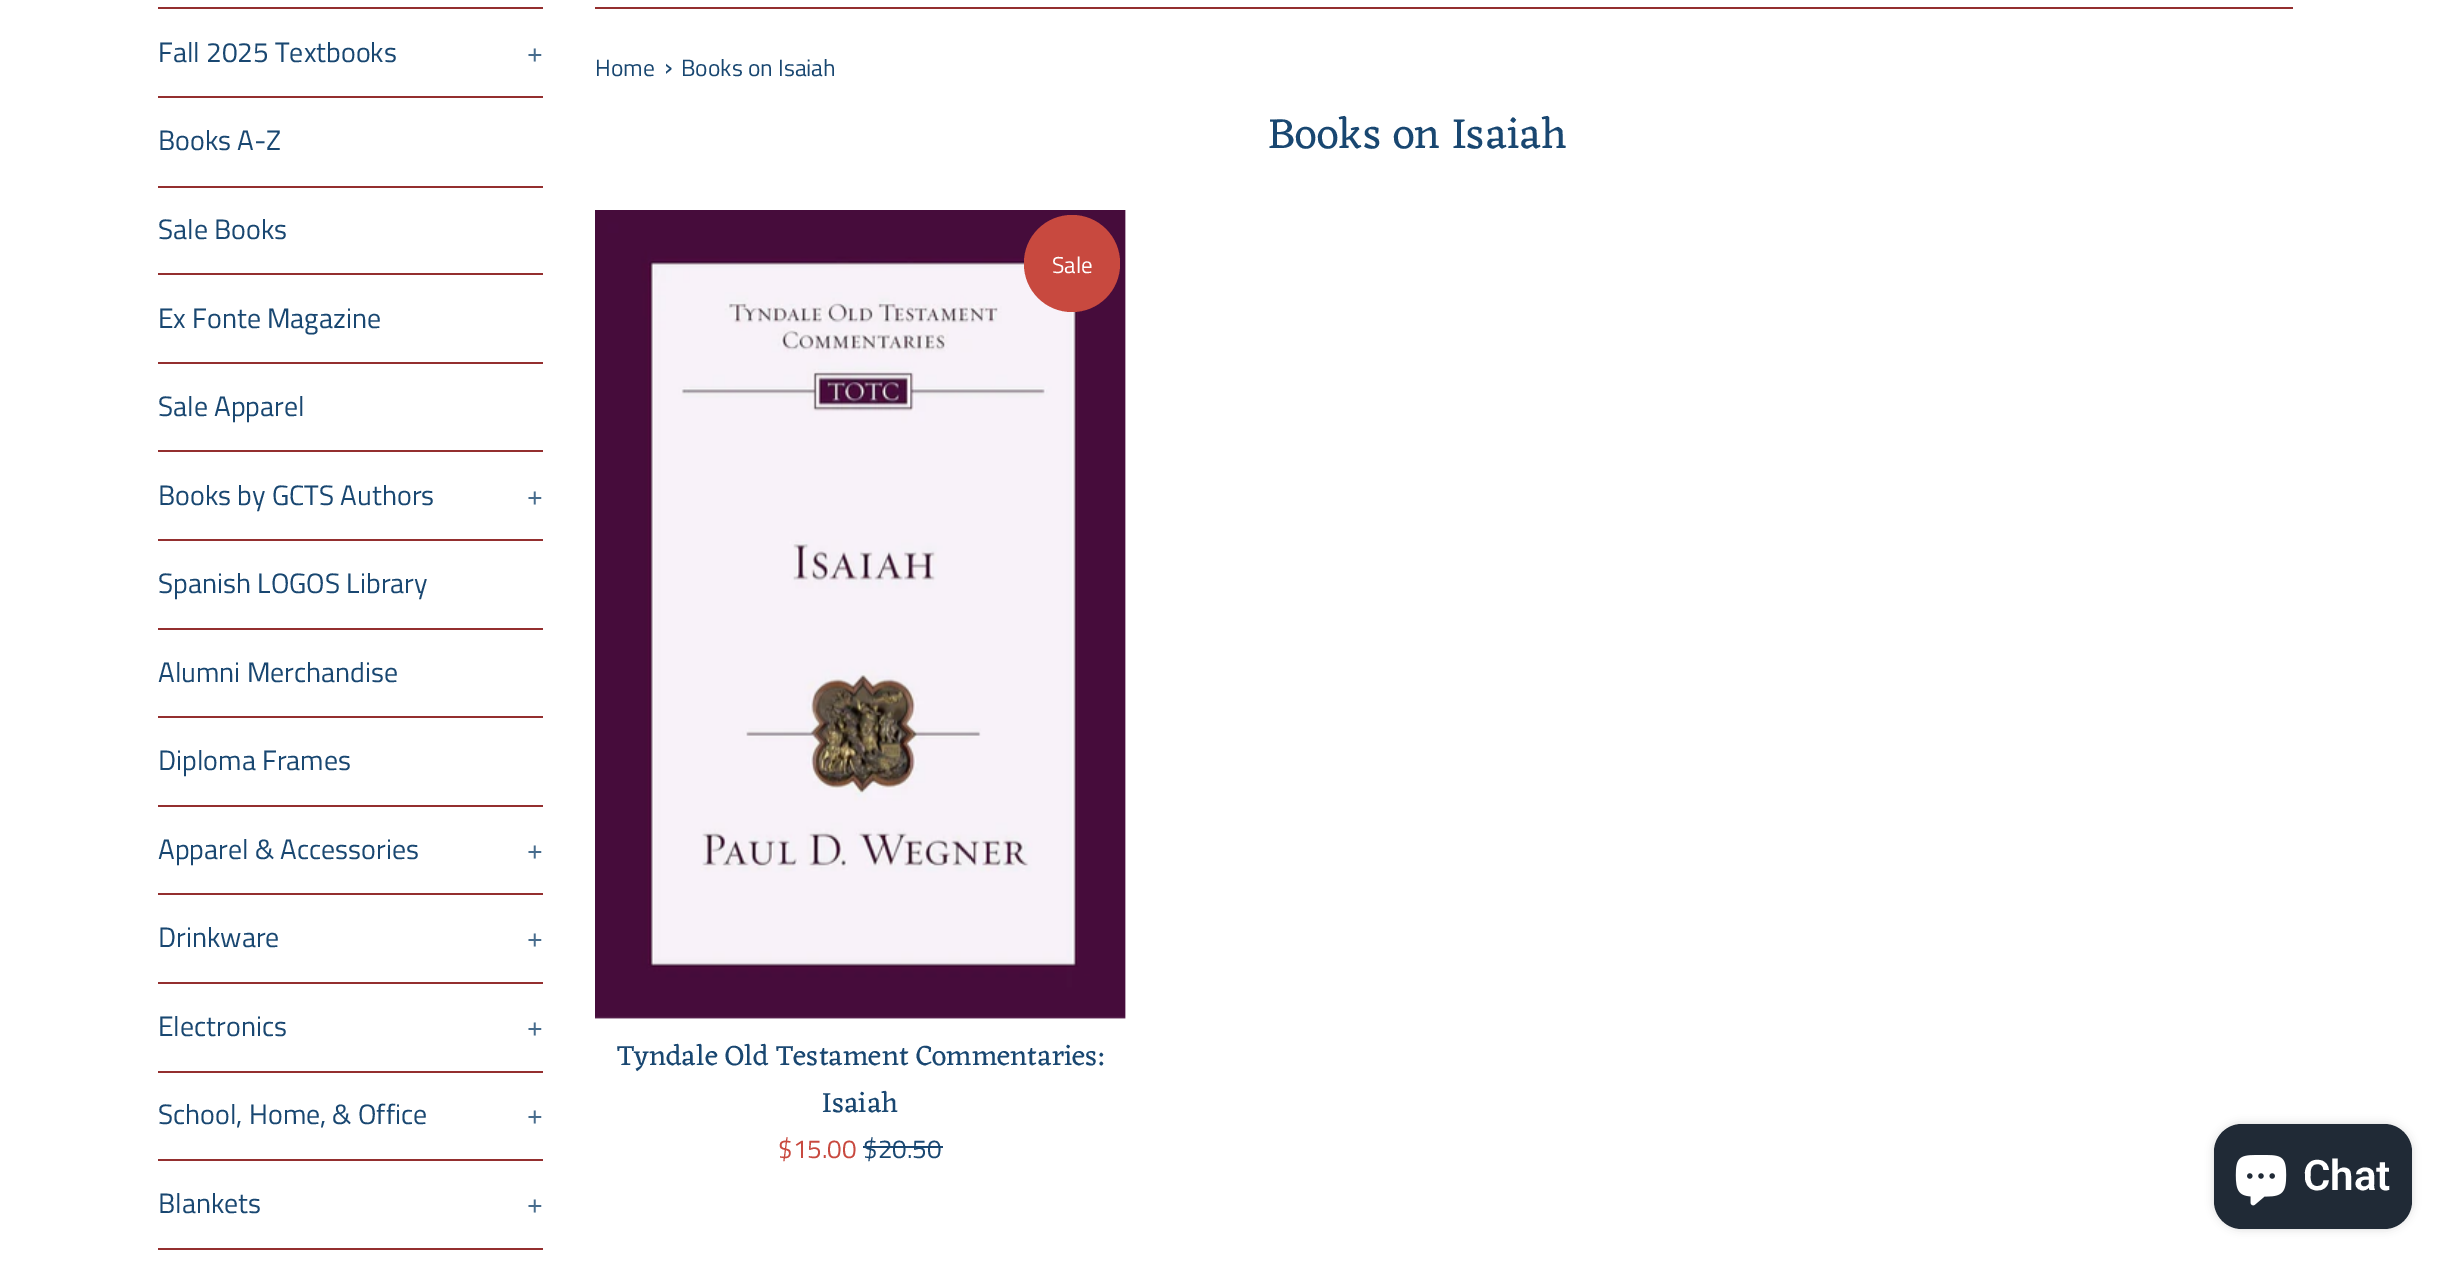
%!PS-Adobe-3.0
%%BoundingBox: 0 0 2450 1264
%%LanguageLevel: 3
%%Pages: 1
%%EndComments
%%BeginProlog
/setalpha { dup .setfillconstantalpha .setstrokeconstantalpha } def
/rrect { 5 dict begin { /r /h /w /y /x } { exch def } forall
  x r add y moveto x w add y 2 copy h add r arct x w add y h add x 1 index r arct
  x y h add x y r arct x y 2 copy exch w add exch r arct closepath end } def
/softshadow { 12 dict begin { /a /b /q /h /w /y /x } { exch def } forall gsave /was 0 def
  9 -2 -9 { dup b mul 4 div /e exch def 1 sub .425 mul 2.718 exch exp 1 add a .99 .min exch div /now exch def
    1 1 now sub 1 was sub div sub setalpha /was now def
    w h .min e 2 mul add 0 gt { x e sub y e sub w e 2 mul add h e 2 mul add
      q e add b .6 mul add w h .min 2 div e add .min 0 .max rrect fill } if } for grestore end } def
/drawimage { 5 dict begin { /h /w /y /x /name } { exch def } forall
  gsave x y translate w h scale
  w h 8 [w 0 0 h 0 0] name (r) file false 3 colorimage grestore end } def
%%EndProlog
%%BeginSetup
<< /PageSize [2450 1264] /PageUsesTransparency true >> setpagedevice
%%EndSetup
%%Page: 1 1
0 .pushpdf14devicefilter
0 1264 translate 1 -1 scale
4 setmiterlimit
1 setgray
0 0 2450 1264 rectfill
0.58 0.184 0.184 setrgbcolor
158 7 385 2 rectfill
158 96 385 2 rectfill
158 186 385 2 rectfill
158 273 385 2 rectfill
158 362 385 2 rectfill
158 450 385 2 rectfill
158 539 385 2 rectfill
158 628 385 2 rectfill
158 716 385 2 rectfill
158 805 385 2 rectfill
158 893 385 2 rectfill
158 982 385 2 rectfill
158 1071 385 2 rectfill
158 1159 385 2 rectfill
158 1248 385 2 rectfill
595 7 1698 2 rectfill
(images/1.raw) 595 210 531 809 drawimage
0.784 0.286 0.247 setrgbcolor
1024 215 96 97 48 rrect fill
0.098 0.278 0.443 setrgbcolor
863 1146 80 2 rectfill
0 setgray
2214 1124 198 105 28 4.5 0.15 softshadow
0.125 0.165 0.212 setrgbcolor
2214 1124 198 105 28 rrect fill
(images/2.raw) 2235 1155 52 51 drawimage
/TitilliumWeb-Regular [28 0 0 -28 0 0] selectfont
0.098 0.278 0.443 setrgbcolor
158 62 moveto (Fall 2025 Textbooks) show
0.278 0.424 0.553 setrgbcolor
527 62 moveto (+) show
0.098 0.278 0.443 setrgbcolor
158 150 moveto (Books A-Z) show
158 239 moveto (Sale Books) show
158 328 moveto (Ex Fonte Magazine) show
158 416 moveto (Sale Apparel) show
158 505 moveto (Books by GCTS Authors) show
0.278 0.424 0.553 setrgbcolor
527 505 moveto (+) show
0.098 0.278 0.443 setrgbcolor
158 593 moveto (Spanish LOGOS Library) show
158 682 moveto (Alumni Merchandise) show
158 770 moveto (Diploma Frames) show
158 859 moveto (Apparel & Accessories) show
0.278 0.424 0.553 setrgbcolor
527 859 moveto (+) show
0.098 0.278 0.443 setrgbcolor
158 947 moveto (Drinkware) show
0.278 0.424 0.553 setrgbcolor
527 947 moveto (+) show
0.098 0.278 0.443 setrgbcolor
158 1036 moveto (Electronics) show
0.278 0.424 0.553 setrgbcolor
527 1036 moveto (+) show
0.098 0.278 0.443 setrgbcolor
158 1124 moveto (School, Home, & Office) show
0.278 0.424 0.553 setrgbcolor
527 1124 moveto (+) show
0.098 0.278 0.443 setrgbcolor
158 1213 moveto (Blankets) show
0.278 0.424 0.553 setrgbcolor
527 1213 moveto (+) show
/TitilliumWeb-Regular [23.5 0 0 -23.5 0 0] selectfont
0.098 0.278 0.443 setrgbcolor
595 76 moveto (Home) show
/TitilliumWeb-Regular [28.9 0 0 -28.9 0 0] selectfont
664 76 moveto (›) show
/TitilliumWeb-Regular [23.5 0 0 -23.5 0 0] selectfont
681 76 moveto (Books on Isaiah) show
/Eczar-Regular [43.75 0 0 -43.75 0 0] selectfont
1268 148 moveto (Books on Isaiah) show
/TitilliumWeb-Regular [23 0 0 -23 0 0] selectfont
1 setgray
1052 273 moveto (Sale) show
/TitilliumWeb-Regular [26 0 0 -26 0 0] selectfont
0.784 0.286 0.247 setrgbcolor
778 1158 moveto ($15.00) show
0.098 0.278 0.443 setrgbcolor
863 1158 moveto ($20.50) show
/Eczar-Regular [28.9 0 0 -28.9 0 0] selectfont
617 1065 moveto (Tyndale Old Testament Commentaries:) show
822 1112 moveto (Isaiah) show
/Roboto-SemiBold [42 0 0 -42 0 0] selectfont
1 setgray
2303 1190 moveto (Chat) show
.poppdf14devicefilter showpage
%%EOF
